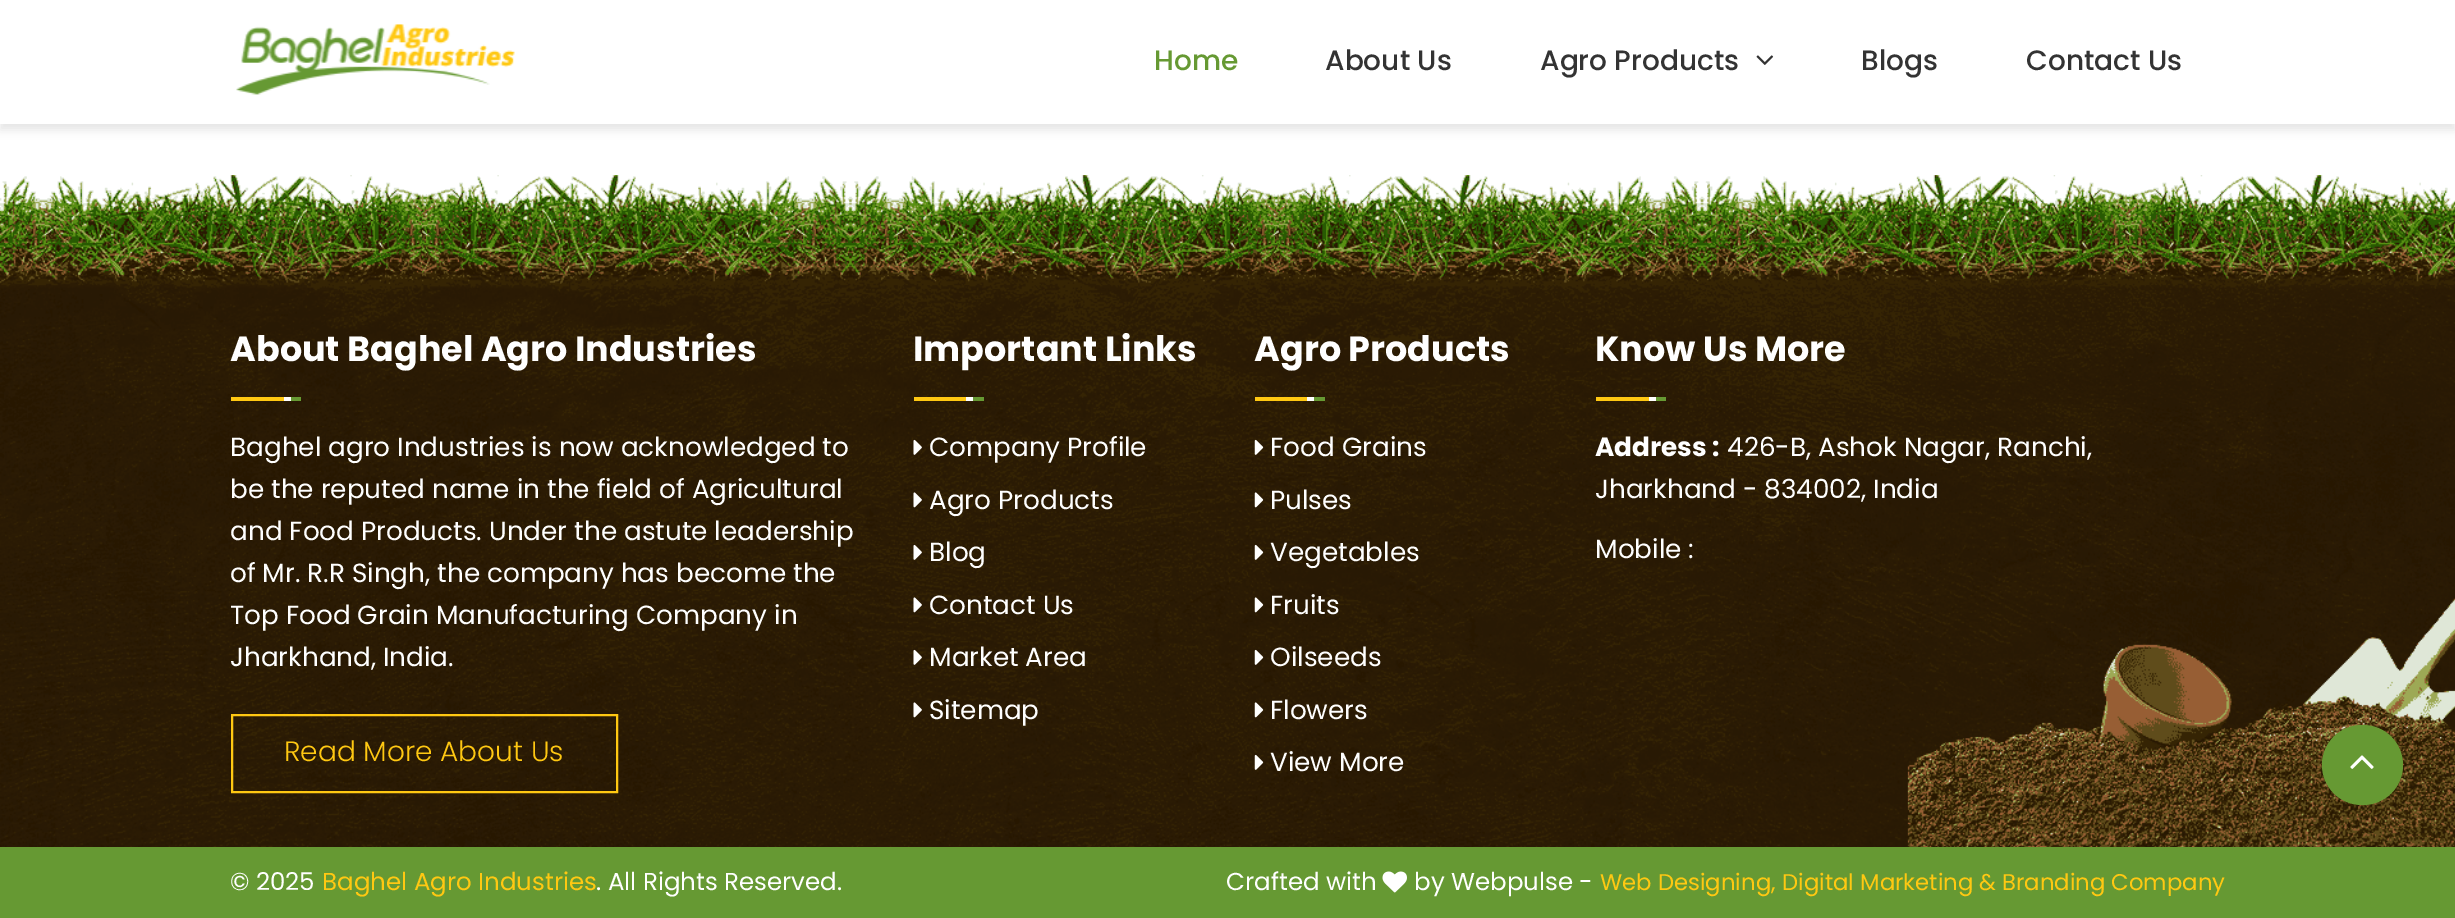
%!PS-Adobe-3.0
%%BoundingBox: 0 0 2455 918
%%LanguageLevel: 3
%%Pages: 1
%%EndComments
%%BeginProlog
/setalpha { dup .setfillconstantalpha .setstrokeconstantalpha } def
/rrect { 5 dict begin { /r /h /w /y /x } { exch def } forall
  x r add y moveto x w add y 2 copy h add r arct x w add y h add x 1 index r arct
  x y h add x y r arct x y 2 copy exch w add exch r arct closepath end } def
/softshadow { 12 dict begin { /a /b /q /h /w /y /x } { exch def } forall gsave /was 0 def
  9 -2 -9 { dup b mul 4 div /e exch def 1 sub .425 mul 2.718 exch exp 1 add a .99 .min exch div /now exch def
    1 1 now sub 1 was sub div sub setalpha /was now def
    w h .min e 2 mul add 0 gt { x e sub y e sub w e 2 mul add h e 2 mul add
      q e add b .6 mul add w h .min 2 div e add .min 0 .max rrect fill } if } for grestore end } def
/drawimage { 5 dict begin { /h /w /y /x /name } { exch def } forall
  gsave x y translate w h scale
  w h 8 [w 0 0 h 0 0] name (r) file false 3 colorimage grestore end } def
%%EndProlog
%%BeginSetup
<< /PageSize [2455 918] /PageUsesTransparency true >> setpagedevice
%%EndSetup
%%Page: 1 1
0 .pushpdf14devicefilter
0 918 translate 1 -1 scale
4 setmiterlimit
1 setgray
0 0 2455 918 rectfill
0 setgray
0 5 2455 125 0 4.5 0.1 softshadow
1 setgray
0 0 2455 124 rectfill
(images/1.raw) 236 24 279 71 drawimage
(images/2.raw) 1756 55 18 10 drawimage
(images/3.raw) 0 175 2455 672 drawimage
1 0.784 0.071 setrgbcolor
231 397 53 4 rectfill
1 setgray
284 397 7 4 rectfill
0.4 0.6 0.2 setrgbcolor
291 397 10 4 rectfill
1 0.784 0.071 setrgbcolor
2 setlinewidth
232 715 385 77 rectstroke
914 397 52 4 rectfill
1 setgray
966 397 7 4 rectfill
0.4 0.6 0.2 setrgbcolor
973 397 11 4 rectfill
(images/4.raw) 913 439 9 16 drawimage
(images/5.raw) 913 492 9 16 drawimage
(images/6.raw) 913 544 9 16 drawimage
(images/7.raw) 913 597 9 16 drawimage
(images/8.raw) 913 649 9 16 drawimage
(images/9.raw) 913 702 9 16 drawimage
1 0.784 0.071 setrgbcolor
1255 397 52 4 rectfill
1 setgray
1307 397 7 4 rectfill
0.4 0.6 0.2 setrgbcolor
1314 397 11 4 rectfill
(images/10.raw) 1254 439 10 16 drawimage
(images/11.raw) 1254 492 10 16 drawimage
(images/12.raw) 1254 544 10 16 drawimage
(images/13.raw) 1254 597 10 16 drawimage
(images/14.raw) 1254 649 10 16 drawimage
(images/15.raw) 1254 702 10 16 drawimage
(images/16.raw) 1254 754 10 16 drawimage
1 0.784 0.071 setrgbcolor
1596 397 53 4 rectfill
1 setgray
1649 397 7 4 rectfill
0.4 0.6 0.2 setrgbcolor
1656 397 10 4 rectfill
2322 725 81 80 40 rrect fill
(images/17.raw) 2350 755 24 14 drawimage
0 847 2455 71 rectfill
(images/18.raw) 1382 871 25 22 drawimage
/Poppins-Medium [28 0 0 -28 0 0] selectfont
1154 70 moveto (Home) show
0.2 setgray
1325 70 moveto (About Us) show
1540 70 moveto (Agro Products) show
1861 70 moveto (Blogs) show
2026 70 moveto (Contact Us) show
/Poppins-Bold [35 0 0 -35 0 0] selectfont
1 setgray
230 361 moveto (About Baghel Agro Industries) show
/Poppins-Regular [26.25 0 0 -26.25 0 0] selectfont
230 456 moveto (Baghel agro Industries is now acknowledged to) show
230 498 moveto (be the reputed name in the field of Agricultural) show
230 540 moveto (and Food Products. Under the astute leadership) show
230 582 moveto (of Mr. R.R Singh, the company has become the) show
230 624 moveto (Top Food Grain Manufacturing Company in) show
230 666 moveto (Jharkhand, India.) show
/Poppins-Light [28 0 0 -28 0 0] selectfont
1 0.784 0.071 setrgbcolor
284 761 moveto (Read More About Us) show
/Poppins-Bold [35 0 0 -35 0 0] selectfont
1 setgray
913 361 moveto (Important Links) show
/Poppins-Regular [26.25 0 0 -26.25 0 0] selectfont
929 456 moveto (Company Profile) show
929 509 moveto (Agro Products) show
929 561 moveto (Blog) show
929 614 moveto (Contact Us) show
929 666 moveto (Market Area) show
929 719 moveto (Sitemap) show
/Poppins-Bold [35 0 0 -35 0 0] selectfont
1254 361 moveto (Agro Products) show
/Poppins-Regular [26.25 0 0 -26.25 0 0] selectfont
1270 456 moveto (Food Grains) show
1270 509 moveto (Pulses) show
1270 561 moveto (Vegetables) show
1270 614 moveto (Fruits) show
1270 666 moveto (Oilseeds) show
1270 719 moveto (Flowers) show
1270 771 moveto (View More) show
/Poppins-Bold [35 0 0 -35 0 0] selectfont
1595 361 moveto (Know Us More) show
/Poppins-Bold [26.25 0 0 -26.25 0 0] selectfont
1595 456 moveto (Address :) show
/Poppins-Regular [26.25 0 0 -26.25 0 0] selectfont
1727 456 moveto (426-B, Ashok Nagar, Ranchi,) show
1595 498 moveto (Jharkhand - 834002, India) show
1595 558 moveto (Mobile :) show
/Poppins-Regular [24.5 0 0 -24.5 0 0] selectfont
230 890 moveto (© 2025) show
1 0.784 0.071 setrgbcolor
322 890 moveto (Baghel Agro Industries) show
1 setgray
596 890 moveto (. All Rights Reserved.) show
1226 890 moveto (Crafted with) show
1414 890 moveto (by Webpulse -) show
/Poppins-Regular [22.75 0 0 -22.75 0 0] selectfont
1 0.784 0.071 setrgbcolor
1600 890 moveto (Web Designing,) show
1782 890 moveto (Digital Marketing &) show
2002 890 moveto (Branding Company) show
.poppdf14devicefilter showpage
%%EOF
